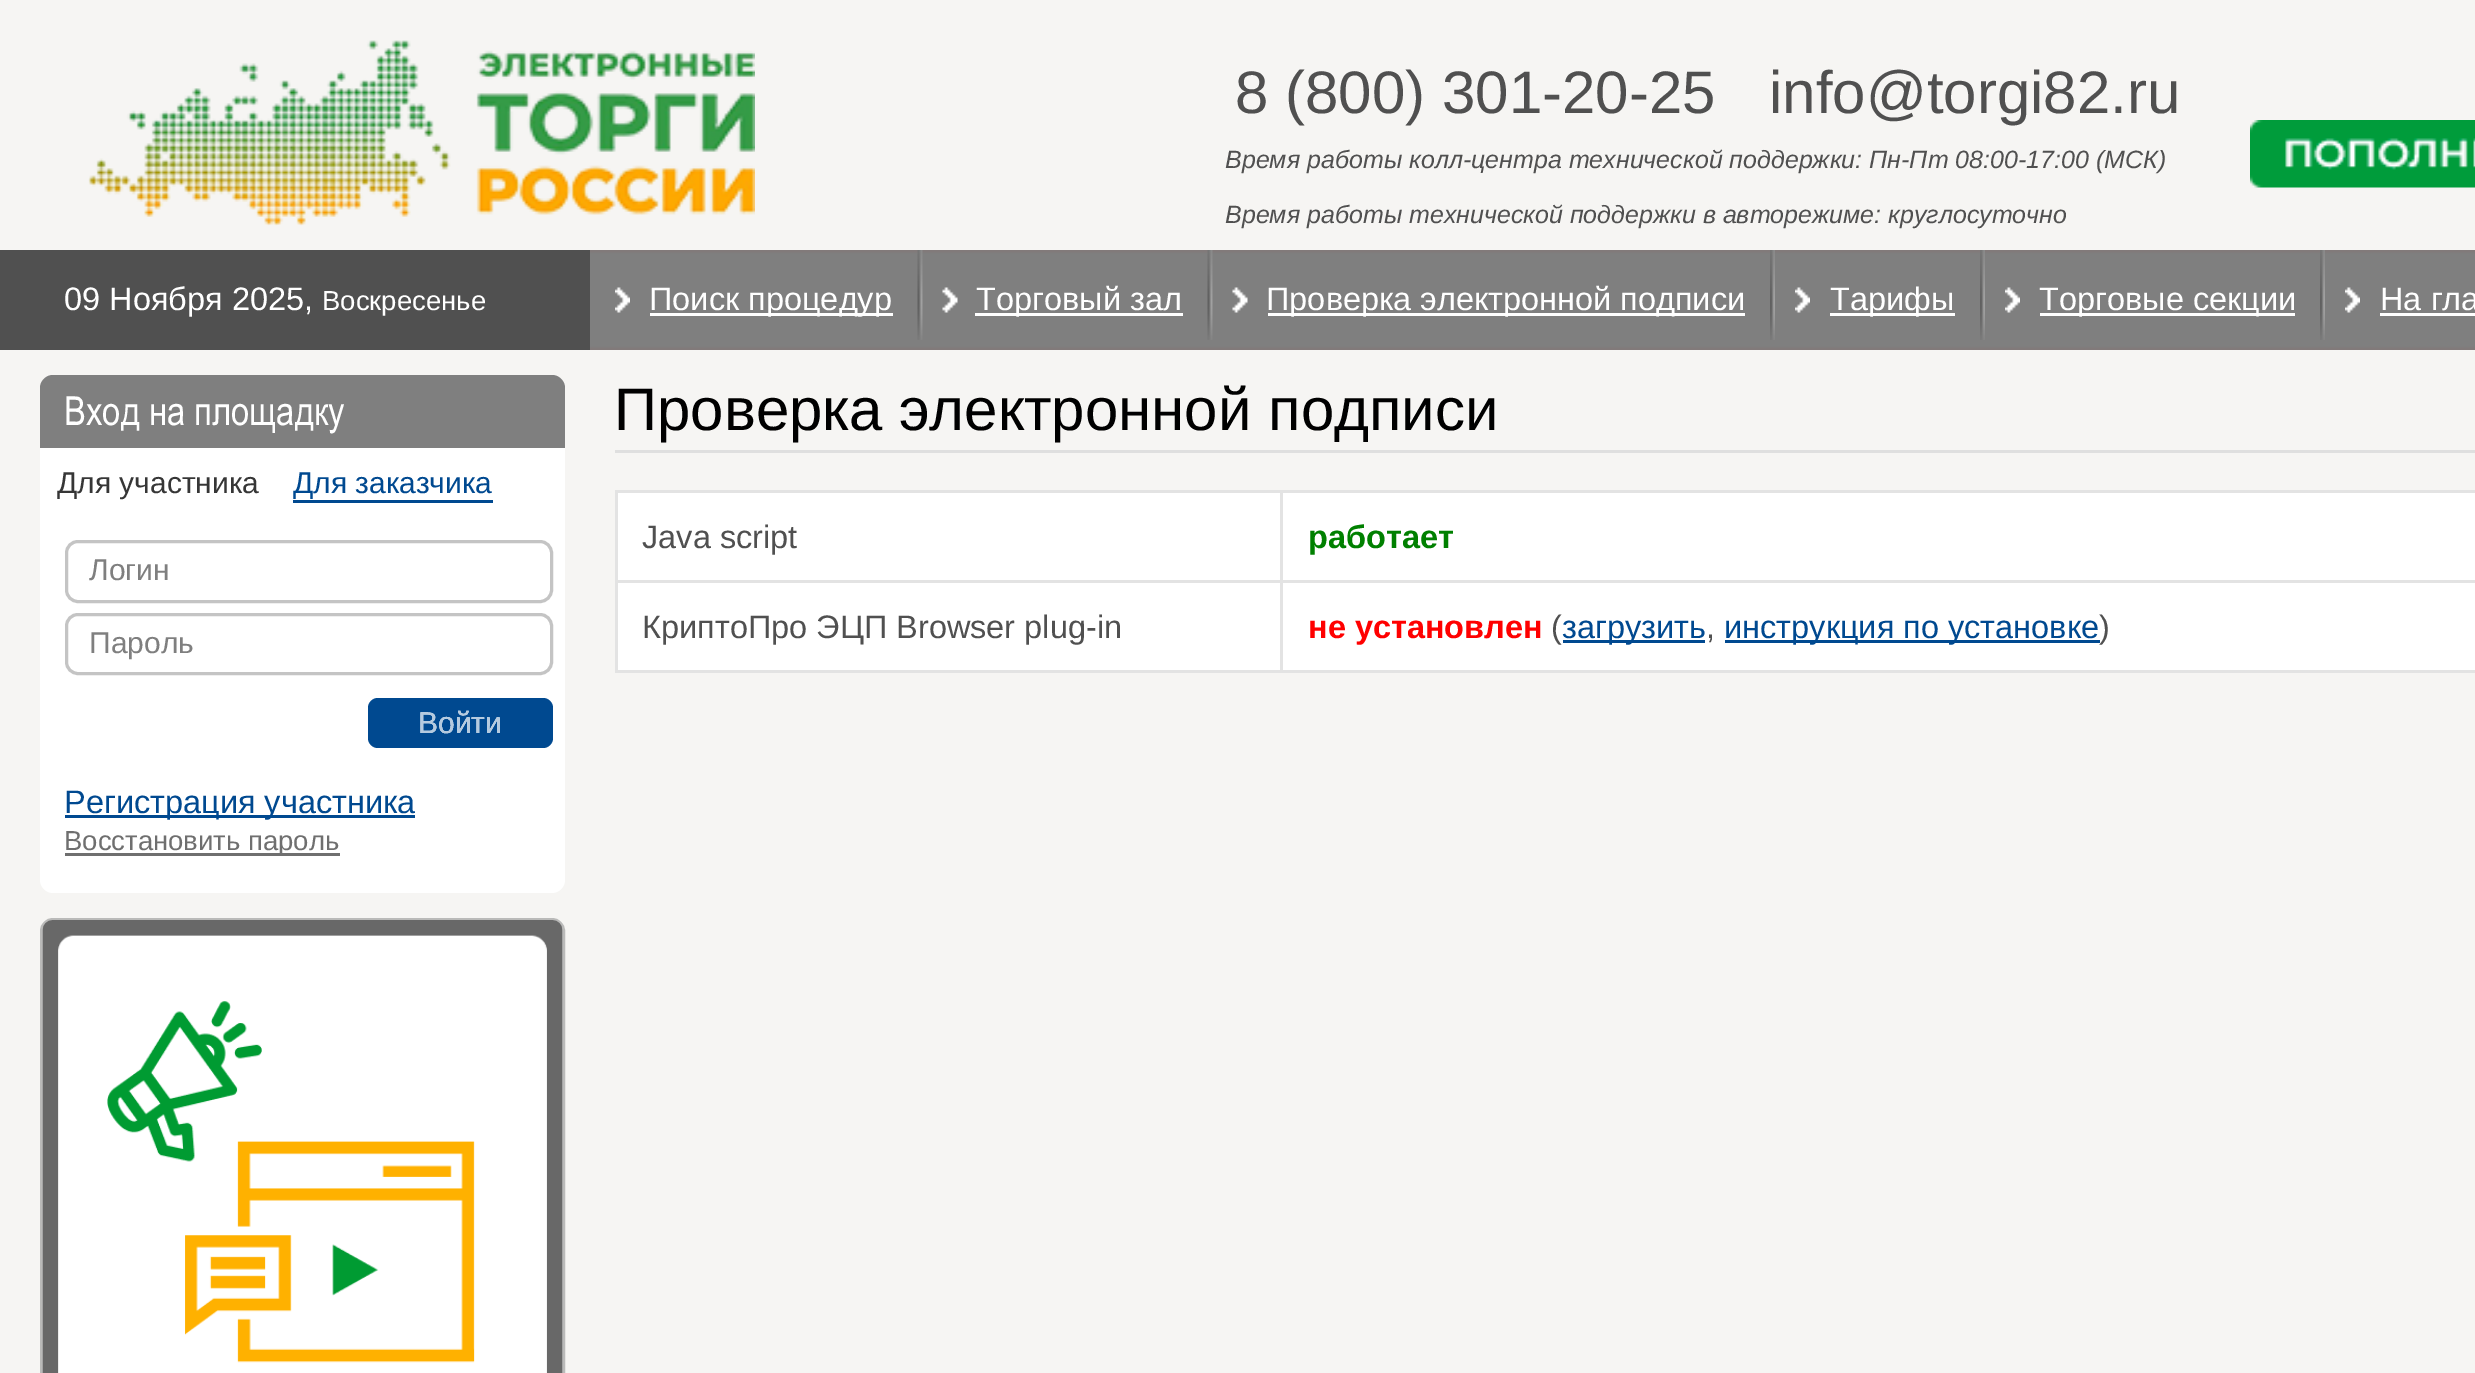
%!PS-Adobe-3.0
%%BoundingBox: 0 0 2475 1373
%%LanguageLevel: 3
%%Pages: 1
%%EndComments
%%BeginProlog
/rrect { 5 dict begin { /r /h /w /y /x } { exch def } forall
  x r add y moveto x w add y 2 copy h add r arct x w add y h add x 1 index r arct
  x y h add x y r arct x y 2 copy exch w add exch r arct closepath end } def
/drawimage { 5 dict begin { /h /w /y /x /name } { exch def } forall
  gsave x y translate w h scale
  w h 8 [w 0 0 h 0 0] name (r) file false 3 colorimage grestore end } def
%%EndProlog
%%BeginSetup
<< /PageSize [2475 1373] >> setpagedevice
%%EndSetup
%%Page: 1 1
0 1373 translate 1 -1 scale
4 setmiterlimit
0.965 0.961 0.953 setrgbcolor
0 0 2475 1373 rectfill
(images/1.raw) 88 40 667 186 drawimage
(images/2.raw) 2250 120 225 68 drawimage
(images/3.raw) 590 250 1885 100 drawimage
0.314 setgray
0 250 590 100 rectfill
(images/4.raw) 615 287 15 26 drawimage
1 setgray
650 313 243 3 rectfill
(images/5.raw) 917 250 6 90 drawimage
(images/6.raw) 942 287 16 26 drawimage
975 313 208 3 rectfill
(images/5.raw) 1207 250 6 90 drawimage
(images/7.raw) 1232 287 16 26 drawimage
1268 313 477 3 rectfill
(images/8.raw) 1770 250 5 90 drawimage
(images/9.raw) 1795 287 15 26 drawimage
1830 313 125 3 rectfill
(images/8.raw) 1980 250 5 90 drawimage
(images/9.raw) 2005 287 15 26 drawimage
2040 313 255 3 rectfill
(images/8.raw) 2320 250 5 90 drawimage
(images/4.raw) 2345 287 15 26 drawimage
2380 313 95 3 rectfill
0.498 setgray
newpath 53 375 moveto 552 375 lineto 559 375 565 381 565 388 curveto 565 448 lineto 40 448 lineto 40 388 lineto 40 381 46 375 53 375 curveto closepath fill
1 setgray
40 448 525 55 rectfill
0 0.286 0.565 setrgbcolor
293 500 200 3 rectfill
1 setgray
newpath 40 503 moveto 565 503 lineto 565 880 lineto 565 887 559 893 552 893 curveto 53 893 lineto 46 893 40 887 40 880 curveto closepath fill
0.769 setgray
3 setlinewidth
66.5 541.5 485 60 11.5 rrect stroke
66.5 614.5 485 59 11.5 rrect stroke
0 0.286 0.565 setrgbcolor
368 698 185 50 10 rrect fill
65 815 350 3 rectfill
0.435 setgray
65 853 275 3 rectfill
0.729 0.729 0.725 setrgbcolor
41.5 919.5 522 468 11.5 rrect stroke
(images/10.raw) 42 920 521 453 drawimage
0.875 setgray
615 450 1860 3 rectfill
1 setgray
618 493 662 87 rectfill
0.89 setgray
1280 490 1195 3 rectfill
1280 580 1195 3 rectfill
1280 670 1195 3 rectfill
1280 580 3 93 rectfill
615 580 668 3 rectfill
1280 490 3 93 rectfill
615 490 668 3 rectfill
615 670 668 3 rectfill
615 580 3 93 rectfill
615 490 3 93 rectfill
1 setgray
1283 493 1192 87 rectfill
618 583 662 87 rectfill
1283 583 1192 87 rectfill
0 0.286 0.565 setrgbcolor
1563 640 142 3 rectfill
1725 640 375 3 rectfill
/LiberationSans-Regular [60 0 0 -60 0 0] selectfont
0.314 setgray
1235 113 moveto (8 \(800\) 301-20-25) show
1769 113 moveto (info@torgi82.ru) show
/LiberationSans-Italic [25 0 0 -25 0 0] selectfont
1225 168 moveto (Время работы колл-центра технической поддержки: Пн-Пт 08:00-17:00 \(МСК\)) show
1225 223 moveto (Время работы технической поддержки в авторежиме: круглосуточно) show
/LiberationSans-Regular [32.5 0 0 -32.5 0 0] selectfont
1 setgray
64 310 moveto (09 Ноября 2025,) show
/LiberationSans-Regular [27.5 0 0 -27.5 0 0] selectfont
322 310 moveto (Воскресенье) show
/LiberationSans-Regular [32.5 0 0 -32.5 0 0] selectfont
649 310 moveto (Поиск процедур) show
976 310 moveto (Торговый зал) show
1266 310 moveto (Проверка электронной подписи) show
1830 310 moveto (Тарифы) show
2039 310 moveto (Торговые секции) show
2380 310 moveto (На гла) show
/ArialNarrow-Regular [40 0 0 -40 0 0] selectfont
64 425 moveto (Вход на площадку) show
/LiberationSans-Regular [30 0 0 -30 0 0] selectfont
0.212 setgray
57 493 moveto (Для участника) show
0 0.286 0.565 setrgbcolor
293 493 moveto (Для заказчика) show
0.498 setgray
89 580 moveto (Логин) show
89 653 moveto (Пароль) show
1 setgray
418 733 moveto (Войти) show
0.71 0.792 0.875 setrgbcolor
418 733 moveto (Войти) show
/LiberationSans-Regular [32.5 0 0 -32.5 0 0] selectfont
0 0.286 0.565 setrgbcolor
64 813 moveto (Регистрация участника) show
/LiberationSans-Regular [27.5 0 0 -27.5 0 0] selectfont
0.435 setgray
64 850 moveto (Восстановить пароль) show
/LiberationSans-Regular [60 0 0 -60 0 0] selectfont
0 setgray
614 430 moveto (Проверка электронной подписи) show
/LiberationSans-Regular [32.5 0 0 -32.5 0 0] selectfont
0.314 setgray
642 548 moveto (Java script) show
/LiberationSans-Bold [32.5 0 0 -32.5 0 0] selectfont
0 0.502 0 setrgbcolor
1308 548 moveto (работает) show
/LiberationSans-Regular [32.5 0 0 -32.5 0 0] selectfont
0.314 setgray
642 638 moveto (КриптоПро ЭЦП Browser plug-in) show
/LiberationSans-Bold [32.5 0 0 -32.5 0 0] selectfont
1 0 0 setrgbcolor
1308 638 moveto (не установлен) show
/LiberationSans-Regular [32.5 0 0 -32.5 0 0] selectfont
0.314 setgray
1551 638 moveto (\() show
0 0.286 0.565 setrgbcolor
1562 638 moveto (загрузить) show
0.314 setgray
1706 638 moveto (,) show
0 0.286 0.565 setrgbcolor
1724 638 moveto (инструкция по установке) show
0.314 setgray
2099 638 moveto (\)) show
showpage
%%EOF
